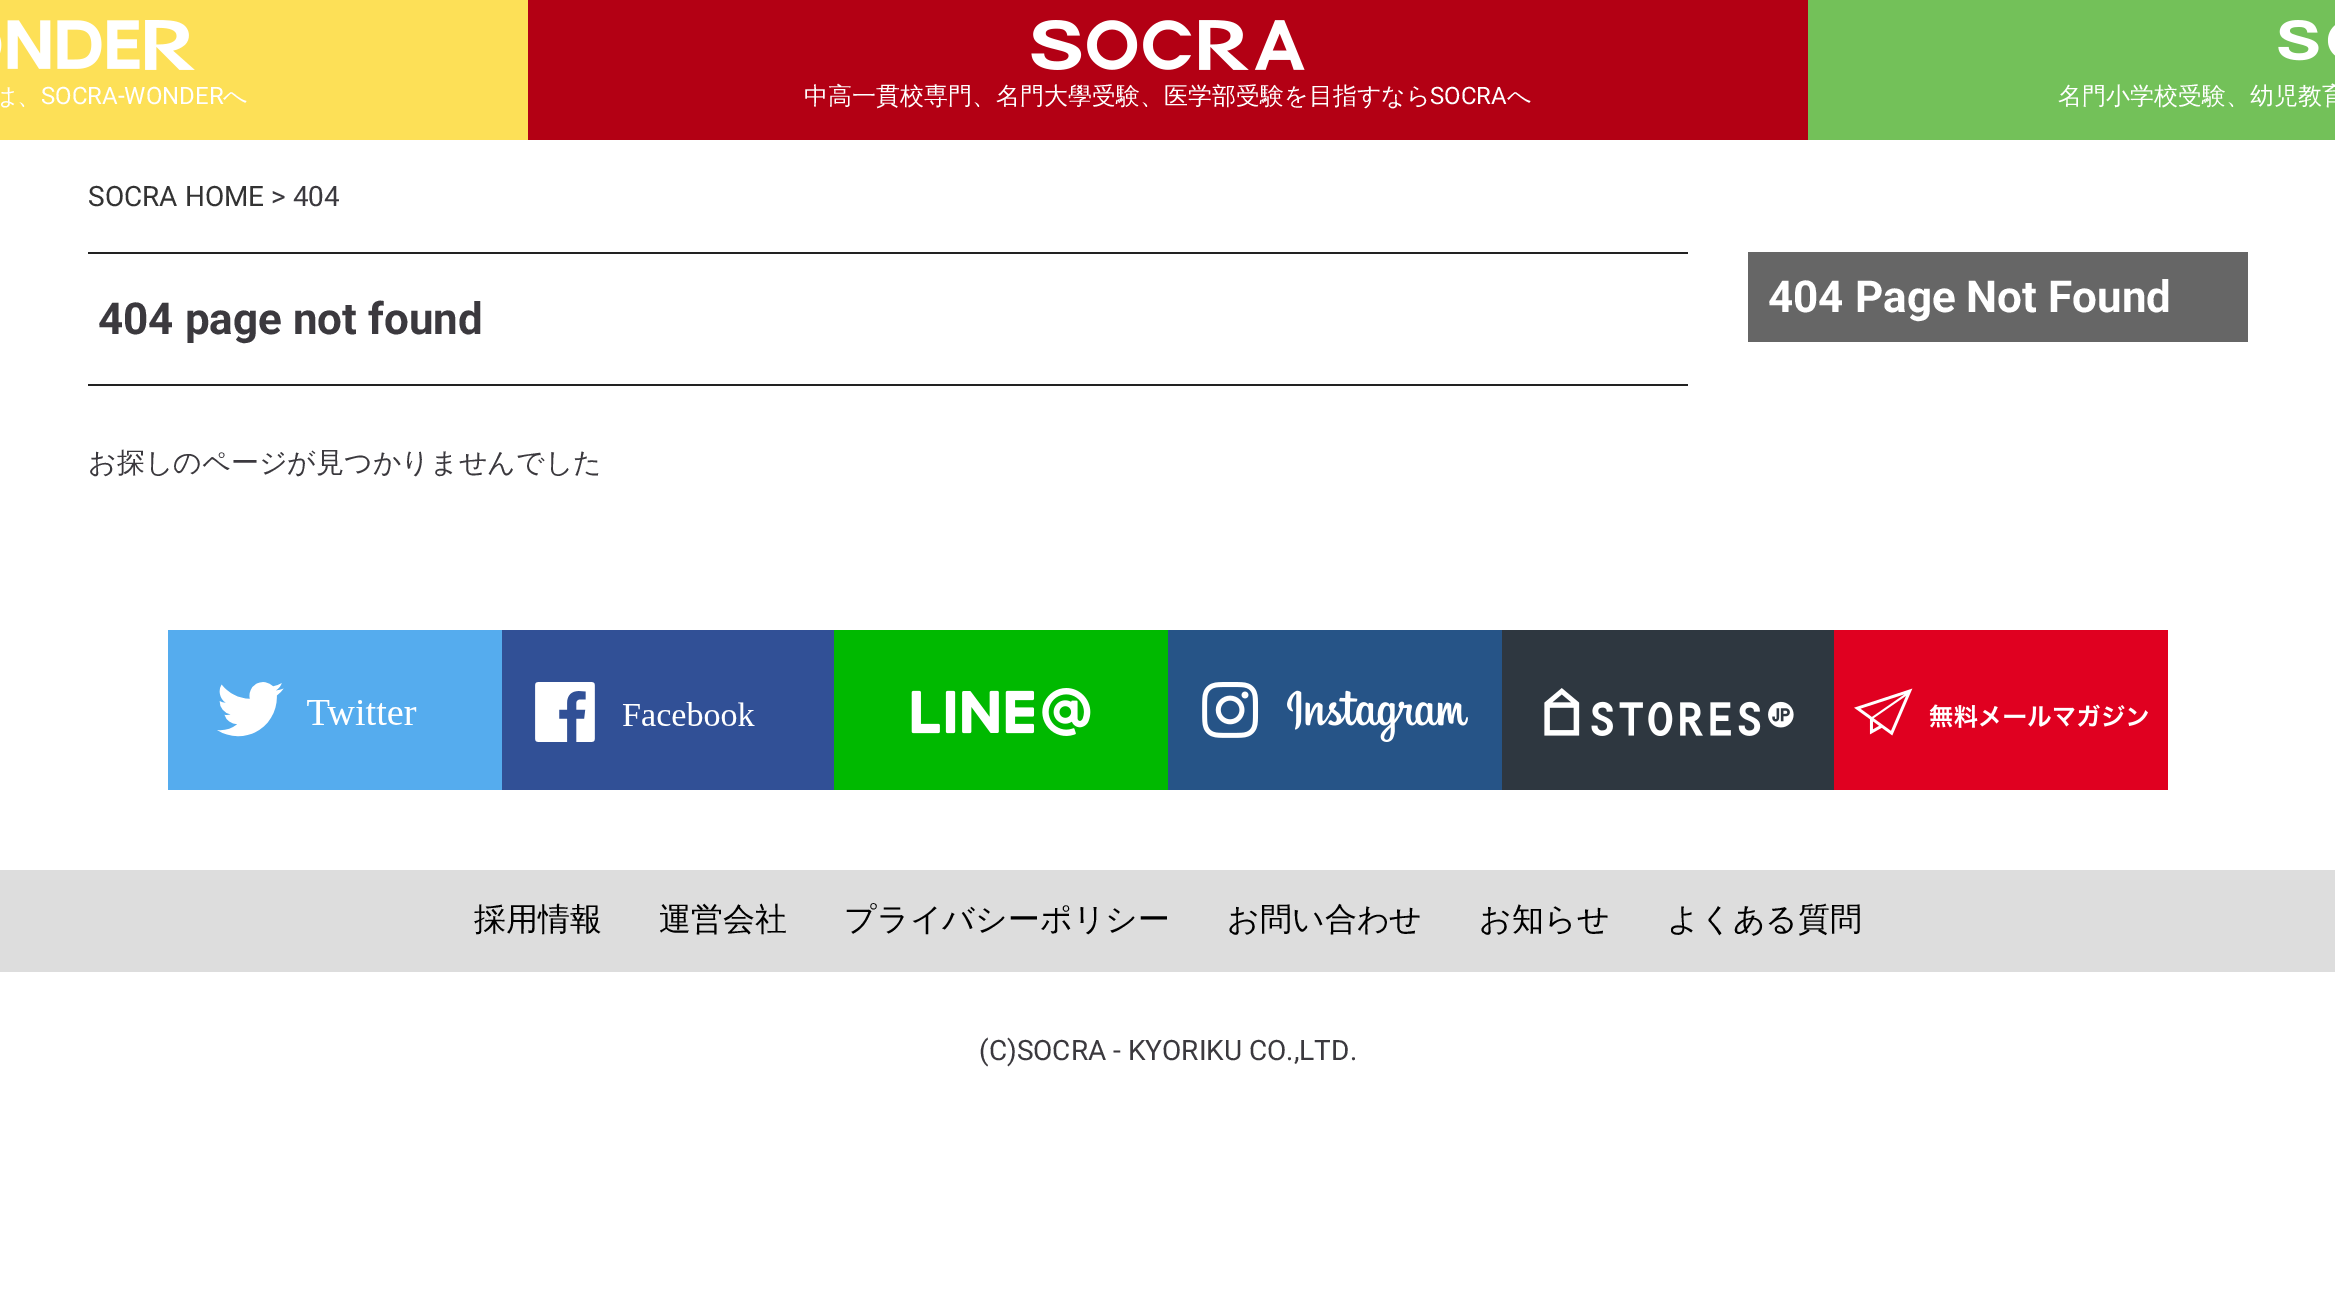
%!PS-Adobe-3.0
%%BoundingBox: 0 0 2335 1293
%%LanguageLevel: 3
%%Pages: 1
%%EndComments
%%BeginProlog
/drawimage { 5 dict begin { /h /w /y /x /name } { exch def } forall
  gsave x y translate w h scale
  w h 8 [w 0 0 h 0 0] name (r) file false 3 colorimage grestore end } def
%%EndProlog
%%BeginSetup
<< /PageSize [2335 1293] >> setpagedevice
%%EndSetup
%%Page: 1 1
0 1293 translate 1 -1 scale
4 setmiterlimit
1 setgray
0 0 2335 1293 rectfill
0.992 0.878 0.341 setrgbcolor
0 0 528 140 rectfill
(images/1.raw) 0 20 195 50 drawimage
0.702 0 0.078 setrgbcolor
528 0 1280 140 rectfill
(images/2.raw) 1031 20 274 50 drawimage
0.451 0.757 0.349 setrgbcolor
1808 0 527 140 rectfill
(images/3.raw) 2278 20 57 41 drawimage
0.133 setgray
88 252 1600 2 rectfill
88 384 1600 2 rectfill
0.4 setgray
1748 252 500 90 rectfill
0.333 0.675 0.933 setrgbcolor
168 630 334 160 rectfill
(images/4.raw) 217 682 200 55 drawimage
0.192 0.314 0.588 setrgbcolor
502 630 332 160 rectfill
(images/5.raw) 535 682 220 60 drawimage
0 0.725 0 setrgbcolor
834 630 334 160 rectfill
(images/6.raw) 911 688 180 48 drawimage
0.149 0.329 0.529 setrgbcolor
1168 630 334 160 rectfill
(images/7.raw) 1202 682 266 60 drawimage
0.18 0.216 0.251 setrgbcolor
1502 630 332 160 rectfill
(images/8.raw) 1544 688 250 48 drawimage
0.878 0 0.125 setrgbcolor
1834 630 334 160 rectfill
(images/9.raw) 1854 688 294 48 drawimage
0.867 setgray
0 870 2335 102 rectfill
/WenQuanYiZenHei-Medium [24 0 0 -24 0 0] selectfont
1 setgray
-8 104 moveto (は、) show
/Roboto-Regular [24 0 0 -24 0 0] selectfont
41 104 moveto (SOCRA-WONDER) show
/WenQuanYiZenHei-Medium [24 0 0 -24 0 0] selectfont
223 104 moveto (へ) show
804 104 moveto (中高一貫校専門、名門大學受験、医学部受験を目指すなら) show
/Roboto-Regular [24 0 0 -24 0 0] selectfont
1430 104 moveto (SOCRA) show
/WenQuanYiZenHei-Medium [24 0 0 -24 0 0] selectfont
1507 104 moveto (へ) show
2058 104 moveto (名門小学校受験、幼児教育) show
/Roboto-Regular [28 0 0 -28 0 0] selectfont
0.2 setgray
88 206 moveto (SOCRA HOME) show
0.231 0.224 0.243 setrgbcolor
271 206 moveto (> 404) show
/Roboto-Bold [44 0 0 -44 0 0] selectfont
98 334 moveto (404 page not found) show
/WenQuanYiZenHei-Medium [28 0 0 -28 0 0] selectfont
88 472 moveto (お探しのページが見つかりませんでした) show
/Roboto-Bold [44 0 0 -44 0 0] selectfont
1 setgray
1768 312 moveto (404 Page Not Found) show
/WenQuanYiZenHei-Medium [32 0 0 -32 0 0] selectfont
0 setgray
474 930 moveto (採用情報) show
659 930 moveto (運営会社) show
844 930 moveto (プライバシーポリシー) show
1227 930 moveto (お問い合わせ) show
1479 930 moveto (お知らせ) show
1667 930 moveto (よくある質問) show
/Roboto-Regular [28 0 0 -28 0 0] selectfont
0.231 0.224 0.243 setrgbcolor
979 1060 moveto (\(C\)SOCRA - KYORIKU CO.,LTD.) show
showpage
%%EOF
